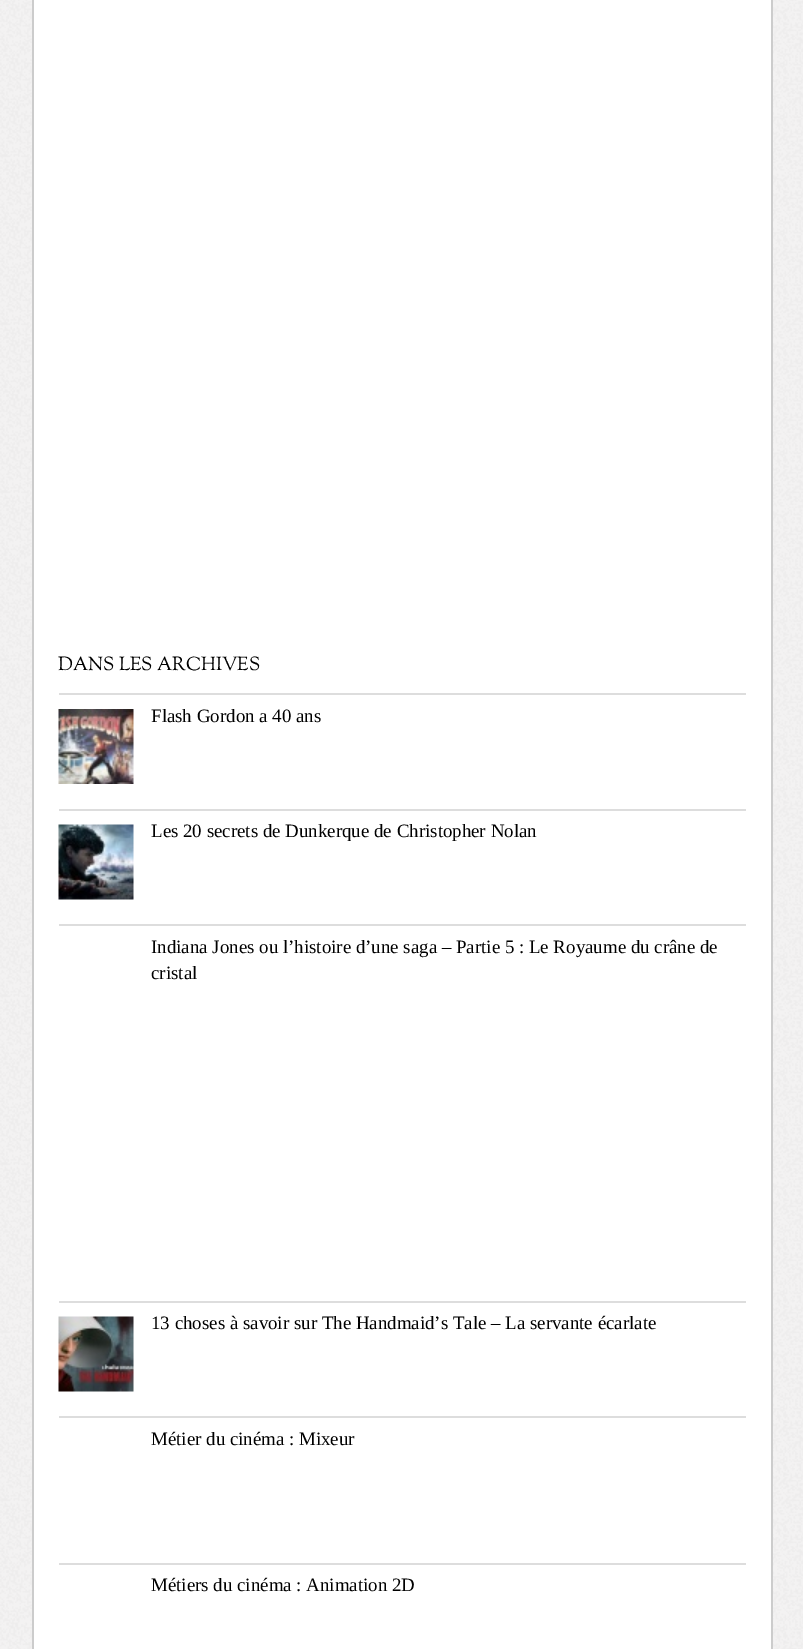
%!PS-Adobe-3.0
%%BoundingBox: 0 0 803 1649
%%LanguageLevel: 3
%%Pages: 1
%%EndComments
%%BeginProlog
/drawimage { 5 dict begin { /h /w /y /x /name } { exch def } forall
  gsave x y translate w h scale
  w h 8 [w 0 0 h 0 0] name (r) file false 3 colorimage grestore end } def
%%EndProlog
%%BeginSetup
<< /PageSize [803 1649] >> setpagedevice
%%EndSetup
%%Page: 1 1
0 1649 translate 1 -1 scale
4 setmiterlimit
0.957 0.953 0.953 setrgbcolor
0 0 803 1649 rectfill
(images/1.raw) 0 0 803 1649 drawimage
1 setgray
34 0 737 1649 rectfill
0.8 setgray
771 0 2 1649 rectfill
32 0 2 1649 rectfill
0.867 setgray
59 693 687 2 rectfill
(images/2.raw) 58 709 76 75 drawimage
59 809 687 2 rectfill
(images/3.raw) 58 824 76 76 drawimage
59 924 687 2 rectfill
59 1301 687 2 rectfill
(images/4.raw) 58 1316 76 76 drawimage
59 1416 687 2 rectfill
59 1563 687 2 rectfill
/OFLSortsMillGoudyTT-Medium [18.9 0 0 -18.9 0 0] selectfont
0 setgray
58 670 moveto (DANS LES ARCHIVES) show
/LiberationSerif-Regular [18.9 0 0 -18.9 0 0] selectfont
151 722 moveto (Flash Gordon a 40 ans) show
151 837 moveto (Les 20 secrets de Dunkerque de Christopher Nolan) show
151 953 moveto (Indiana Jones ou l’histoire d’une saga – Partie 5 : Le Royaume du crâne de) show
151 979 moveto (cristal) show
151 1329 moveto (13 choses à savoir sur The Handmaid’s Tale – La servante écarlate) show
151 1445 moveto (Métier du cinéma : Mixeur) show
151 1591 moveto (Métiers du cinéma : Animation 2D) show
showpage
%%EOF
